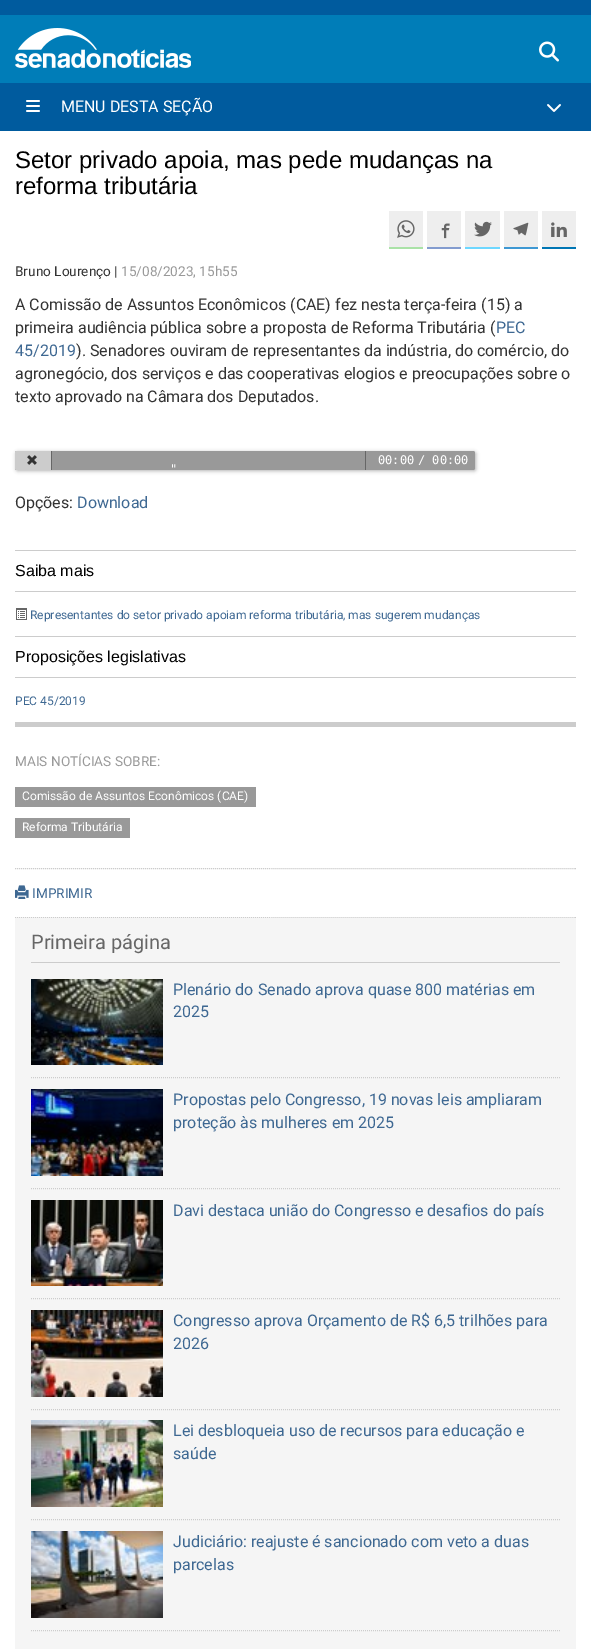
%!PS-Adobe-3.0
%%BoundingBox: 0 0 591 1649
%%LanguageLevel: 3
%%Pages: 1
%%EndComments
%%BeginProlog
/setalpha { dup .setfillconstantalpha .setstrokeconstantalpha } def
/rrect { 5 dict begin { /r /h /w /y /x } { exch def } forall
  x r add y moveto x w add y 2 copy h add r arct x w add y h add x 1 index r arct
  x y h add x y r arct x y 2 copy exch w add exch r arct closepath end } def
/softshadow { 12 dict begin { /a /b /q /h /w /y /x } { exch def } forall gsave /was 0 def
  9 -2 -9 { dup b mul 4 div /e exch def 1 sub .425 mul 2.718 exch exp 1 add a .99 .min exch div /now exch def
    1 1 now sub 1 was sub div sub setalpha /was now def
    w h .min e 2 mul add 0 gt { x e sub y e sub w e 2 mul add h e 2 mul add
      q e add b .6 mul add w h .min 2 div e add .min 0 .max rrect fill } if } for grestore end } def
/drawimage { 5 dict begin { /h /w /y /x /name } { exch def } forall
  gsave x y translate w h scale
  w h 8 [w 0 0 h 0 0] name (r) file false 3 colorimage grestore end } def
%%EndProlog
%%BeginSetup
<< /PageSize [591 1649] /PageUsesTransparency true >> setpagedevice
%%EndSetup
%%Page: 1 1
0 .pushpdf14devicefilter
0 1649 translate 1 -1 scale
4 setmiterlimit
1 setgray
0 0 591 1649 rectfill
0 0.357 0.62 setrgbcolor
0 0 591 15 rectfill
0 0.49 0.722 setrgbcolor
0 15 591 68 rectfill
(images/1.raw) 15 28 176 40 drawimage
(images/2.raw) 539 41 20 21 drawimage
0 0.357 0.62 setrgbcolor
0 83 591 48 rectfill
(images/3.raw) 26 100 14 12 drawimage
(images/4.raw) 547 104 14 8 drawimage
0.933 setgray
389 211 34 36 rectfill
0.667 0.886 0.655 setrgbcolor
389 247 34 2 rectfill
(images/5.raw) 397 220 18 18 drawimage
0.933 setgray
427 211 34 36 rectfill
0.514 0.612 0.812 setrgbcolor
427 247 34 2 rectfill
(images/6.raw) 441 223 9 16 drawimage
0.933 setgray
465 211 35 36 rectfill
0.431 0.843 1 setrgbcolor
465 247 35 2 rectfill
(images/7.raw) 474 221 18 16 drawimage
0.933 setgray
504 211 34 36 rectfill
0.243 0.596 0.827 setrgbcolor
504 247 34 2 rectfill
(images/8.raw) 513 222 16 14 drawimage
0.933 setgray
542 211 34 36 rectfill
0 0.463 0.706 setrgbcolor
542 247 34 2 rectfill
(images/9.raw) 551 222 16 15 drawimage
0 setgray
16 452 460 19 2 2 0.3 softshadow
0.6 setgray
15 451 460 19 2 rrect fill
0.8 setgray
newpath 17 451 moveto 52 451 lineto 52 470 lineto 17 470 lineto 16 470 15 469 15 468 curveto 15 453 lineto 15 452 16 451 17 451 curveto closepath fill
0.4 setgray
51 451 1 19 rectfill
(images/10.raw) 27 455 10 10 drawimage
365 451 1 19 rectfill
0.8 setgray
15 722 561 5 rectfill
15 550 561 1 rectfill
15 591 561 1 rectfill
(images/11.raw) 16 608 11 12 drawimage
15 636 561 1 rectfill
15 677 561 1 rectfill
0.6 setgray
15 787 241 20 rectfill
15 818 115 20 rectfill
0.8 setgray
[1 1] 0 setdash
newpath 15 868.5 moveto 576 868.5 lineto stroke
newpath 15 917.5 moveto 576 917.5 lineto stroke
(images/12.raw) 15 885 14 14 drawimage
0.961 setgray
15 918 561 731 rectfill
0.8 setgray
31 962 529 1 rectfill
newpath 31 1077.5 moveto 560 1077.5 lineto stroke
(images/13.raw) 31 979 132 86 drawimage
newpath 31 1188.5 moveto 560 1188.5 lineto stroke
(images/14.raw) 31 1089 132 87 drawimage
newpath 31 1298.5 moveto 560 1298.5 lineto stroke
(images/15.raw) 31 1200 132 86 drawimage
newpath 31 1409.5 moveto 560 1409.5 lineto stroke
(images/16.raw) 31 1310 132 87 drawimage
newpath 31 1519.5 moveto 560 1519.5 lineto stroke
(images/17.raw) 31 1420 132 87 drawimage
newpath 31 1630.5 moveto 560 1630.5 lineto stroke
(images/18.raw) 31 1531 132 87 drawimage
/Roboto-Regular [16 0 0 -16 0 0] selectfont
1 setgray
61 112 moveto (MENU DESTA SEÇÃO) show
/LiberationSans-Regular [24 0 0 -24 0 0] selectfont
0 setgray
15 168 moveto (Setor privado apoia, mas pede mudanças na) show
15 194 moveto (reforma tributária) show
/Roboto-Regular [13.6 0 0 -13.6 0 0] selectfont
0.2 setgray
15 276 moveto (Bruno Lourenço |) show
0.6 setgray
121 276 moveto (15/08/2023, 15h55) show
/Roboto-Regular [16 0 0 -16 0 0] selectfont
0.2 setgray
15 310 moveto (A Comissão de Assuntos Econômicos \(CAE\) fez nesta terça-feira \(15\) a) show
15 333 moveto (primeira audiência pública sobre a proposta de Reforma Tributária \() show
0.243 0.408 0.573 setrgbcolor
496 333 moveto (PEC) show
15 356 moveto (45/2019) show
0.2 setgray
76 356 moveto (\). Senadores ouviram de representantes da indústria, do comércio, do) show
15 379 moveto (agronegócio, dos serviços e das cooperativas elogios e preocupações sobre o) show
15 402 moveto (texto aprovado na Câmara dos Deputados.) show
/DejaVuSansMono-Regular [12 0 0 -12 0 0] selectfont
1 setgray
170 473 moveto (") show
378 464 moveto (00:00) show
418 464 moveto (/ 00:00) show
/Roboto-Regular [16 0 0 -16 0 0] selectfont
0.2 setgray
15 508 moveto (Opções:) show
0.243 0.408 0.573 setrgbcolor
77 508 moveto (Download) show
/LiberationSans-Regular [16 0 0 -16 0 0] selectfont
0 setgray
15 576 moveto (Saiba mais) show
/Roboto-Regular [12 0 0 -12 0 0] selectfont
0.243 0.408 0.573 setrgbcolor
30 619 moveto (Representantes do setor privado apoiam reforma tributária, mas sugerem mudanças) show
/LiberationSans-Regular [16 0 0 -16 0 0] selectfont
0 setgray
15 662 moveto (Proposições legislativas) show
/Roboto-Regular [12 0 0 -12 0 0] selectfont
0.243 0.408 0.573 setrgbcolor
15 705 moveto (PEC 45/2019) show
/Roboto-Regular [13.6 0 0 -13.6 0 0] selectfont
0.6 setgray
15 766 moveto (MAIS NOTÍCIAS SOBRE:) show
/Roboto-Regular [12 0 0 -12 0 0] selectfont
1 setgray
22 800 moveto (Comissão de Assuntos Econômicos \(CAE\)) show
22 831 moveto (Reforma Tributária) show
/Roboto-Regular [13.6 0 0 -13.6 0 0] selectfont
0.243 0.408 0.573 setrgbcolor
32 898 moveto (IMPRIMIR) show
/Roboto-Regular [20 0 0 -20 0 0] selectfont
0.4 setgray
31 949 moveto (Primeira página) show
/Roboto-Regular [16 0 0 -16 0 0] selectfont
0.243 0.408 0.573 setrgbcolor
173 995 moveto (Plenário do Senado aprova quase 800 matérias em) show
173 1017 moveto (2025) show
173 1105 moveto (Propostas pelo Congresso, 19 novas leis ampliaram) show
173 1128 moveto (proteção às mulheres em 2025) show
173 1216 moveto (Davi destaca união do Congresso e desafios do país) show
173 1326 moveto (Congresso aprova Orçamento de R$ 6,5 trilhões para) show
173 1349 moveto (2026) show
173 1436 moveto (Lei desbloqueia uso de recursos para educação e) show
173 1459 moveto (saúde) show
173 1547 moveto (Judiciário: reajuste é sancionado com veto a duas) show
173 1570 moveto (parcelas) show
.poppdf14devicefilter showpage
%%EOF
